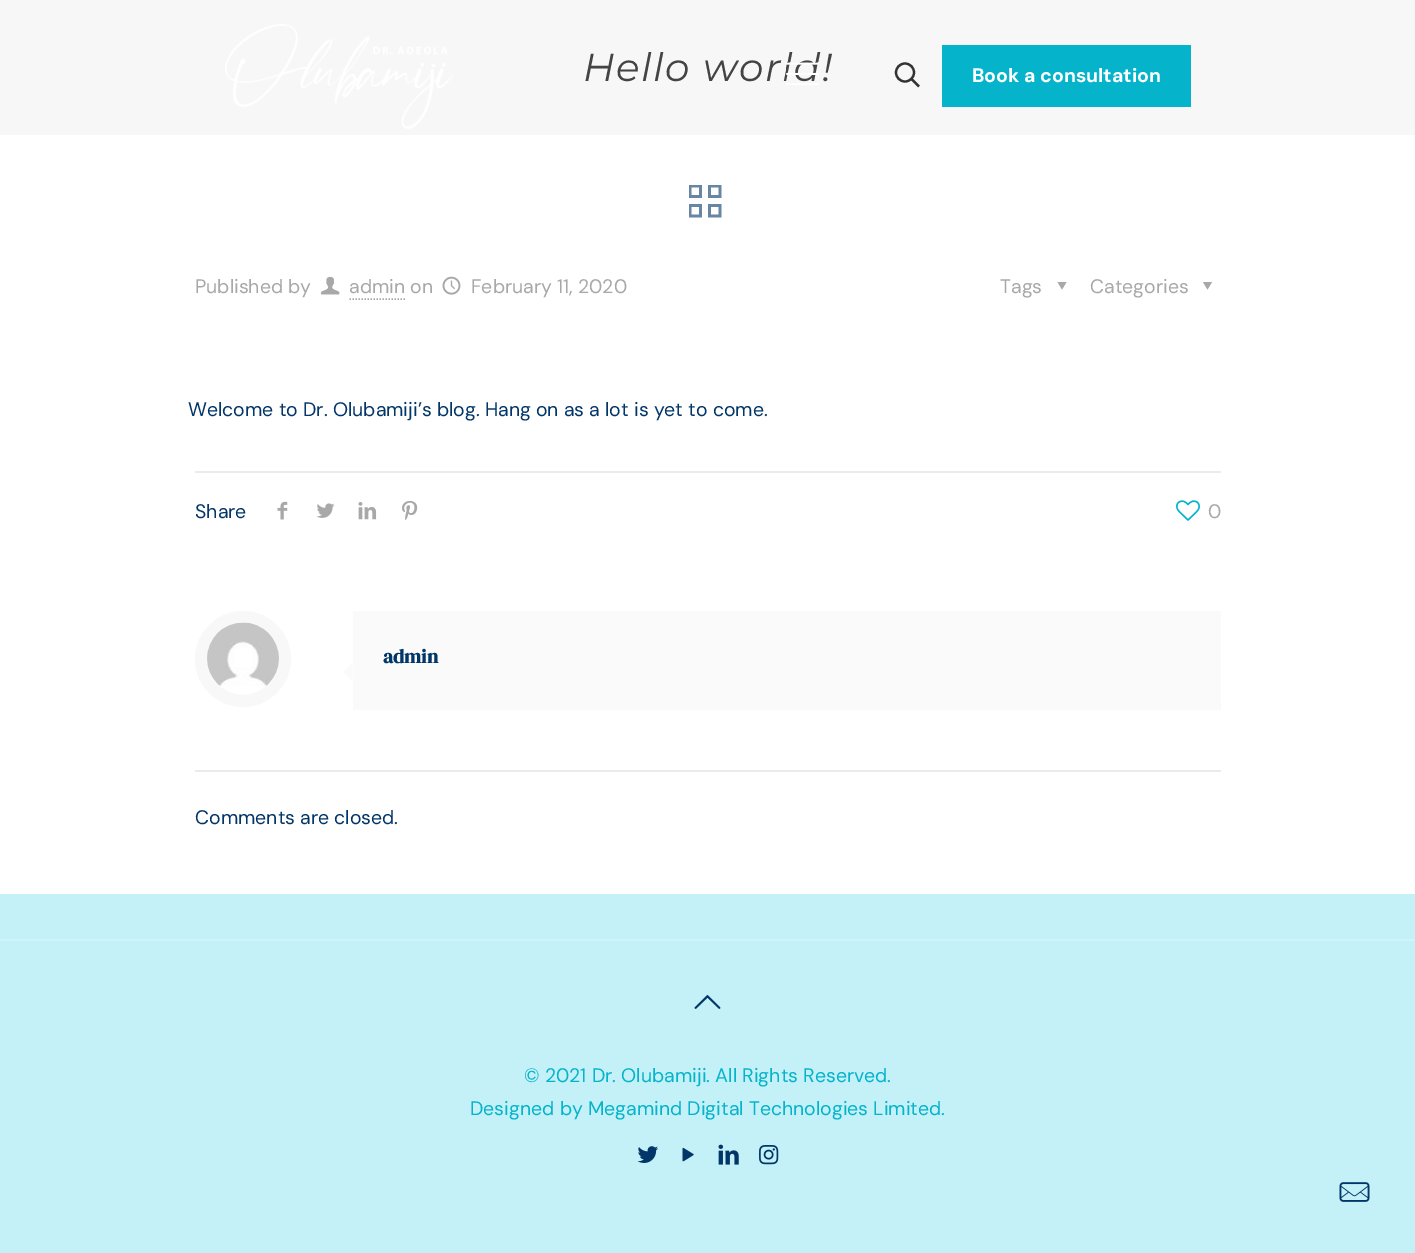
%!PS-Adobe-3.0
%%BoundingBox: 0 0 1415 1253
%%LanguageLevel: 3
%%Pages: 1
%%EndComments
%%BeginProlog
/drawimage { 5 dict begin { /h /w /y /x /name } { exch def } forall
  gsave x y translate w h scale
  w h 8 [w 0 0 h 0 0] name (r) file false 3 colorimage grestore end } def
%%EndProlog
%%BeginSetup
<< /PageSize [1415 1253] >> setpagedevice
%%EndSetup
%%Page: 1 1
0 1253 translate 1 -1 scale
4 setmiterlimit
1 setgray
0 0 1415 1253 rectfill
0.969 setgray
0 0 1415 135 rectfill
(images/1.raw) 225 24 228 105 drawimage
0.2 setgray
2.2 setlinewidth
newpath 905 72.5 9 0 360 arc closepath stroke
newpath 911.5 79 moveto 919 86.5 lineto stroke
0.02 0.702 0.796 setrgbcolor
942 45 249 62 rectfill
(images/3.raw) 689 185 33 33 drawimage
(images/4.raw) 321 276 19 19 drawimage
0.659 setgray
1.5 setlinewidth
[1.5 1.5] 0 setdash
newpath 349.5 299 moveto 405 299 lineto stroke
(images/5.raw) 442 276 19 19 drawimage
newpath 1066.5 282 moveto 1062 289.5 lineto 1057.5 282 lineto closepath fill
newpath 1212 282 moveto 1207.5 289.5 lineto 1203 282 lineto closepath fill
0.922 setgray
195 471 1026 2 rectfill
(images/6.raw) 277 501 11 19 drawimage
(images/7.raw) 316 503 19 15 drawimage
(images/8.raw) 358 502 19 18 drawimage
(images/9.raw) 402 500 16 21 drawimage
(images/10.raw) 1176 500 24 21 drawimage
0.973 setgray
12 setlinewidth
[] 0 setdash
newpath 243 659 42 0 360 arc closepath stroke
(images/11.raw) 207 622 72 64 drawimage
0.98 setgray
353 611 868 99 rectfill
newpath 352.5 663 moveto 352.5 681 lineto 343.5 672 lineto closepath fill
0.922 setgray
195 770 1026 2 rectfill
0.765 0.945 0.969 setrgbcolor
0 894 1415 359 rectfill
0.812 0.957 0.976 setrgbcolor
0 939 1415 2 rectfill
(images/12.raw) 694 995 27 14 drawimage
(images/13.raw) 637 1146 21 17 drawimage
(images/14.raw) 682 1147 12 15 drawimage
(images/15.raw) 718 1144 21 21 drawimage
(images/16.raw) 759 1145 20 20 drawimage
(images/17.raw) 1339 1182 31 20 drawimage
/Montserrat-Italic [39 0 0 -39 0 0] selectfont
0.267 setgray
583 81 moveto 1.5 0 (Hello world!) ashow
(images/2.raw) 786 62 33 23 drawimage
/DMSans-Bold [19.5 0 0 -19.5 0 0] selectfont
1 setgray
972 82 moveto (Book a consultation) show
/DMSans-Regular [19.5 0 0 -19.5 0 0] selectfont
0.659 setgray
195 293 moveto (Published by) show
349 293 moveto (admin on) show
471 293 moveto (February 11, 2020) show
1000 293 moveto (Tags) show
1090 293 moveto (Categories) show
0.008 0.212 0.408 setrgbcolor
188 416 moveto (Welcome to Dr. Olubamiji’s blog. Hang on as a lot is yet to come.) show
195 518 moveto (Share) show
0.659 setgray
1208 518 moveto (0) show
/DMSerifDisplay-Bold [19.5 0 0 -19.5 0 0] selectfont
0.008 0.212 0.408 setrgbcolor
383 663 moveto (admin) show
/DMSans-Regular [19.5 0 0 -19.5 0 0] selectfont
195 824 moveto (Comments are closed.) show
0.02 0.702 0.796 setrgbcolor
524 1082 moveto (© 2021 Dr. Olubamiji. All Rights Reserved.) show
470 1115 moveto (Designed by Megamind Digital Technologies Limited.) show
showpage
%%EOF
